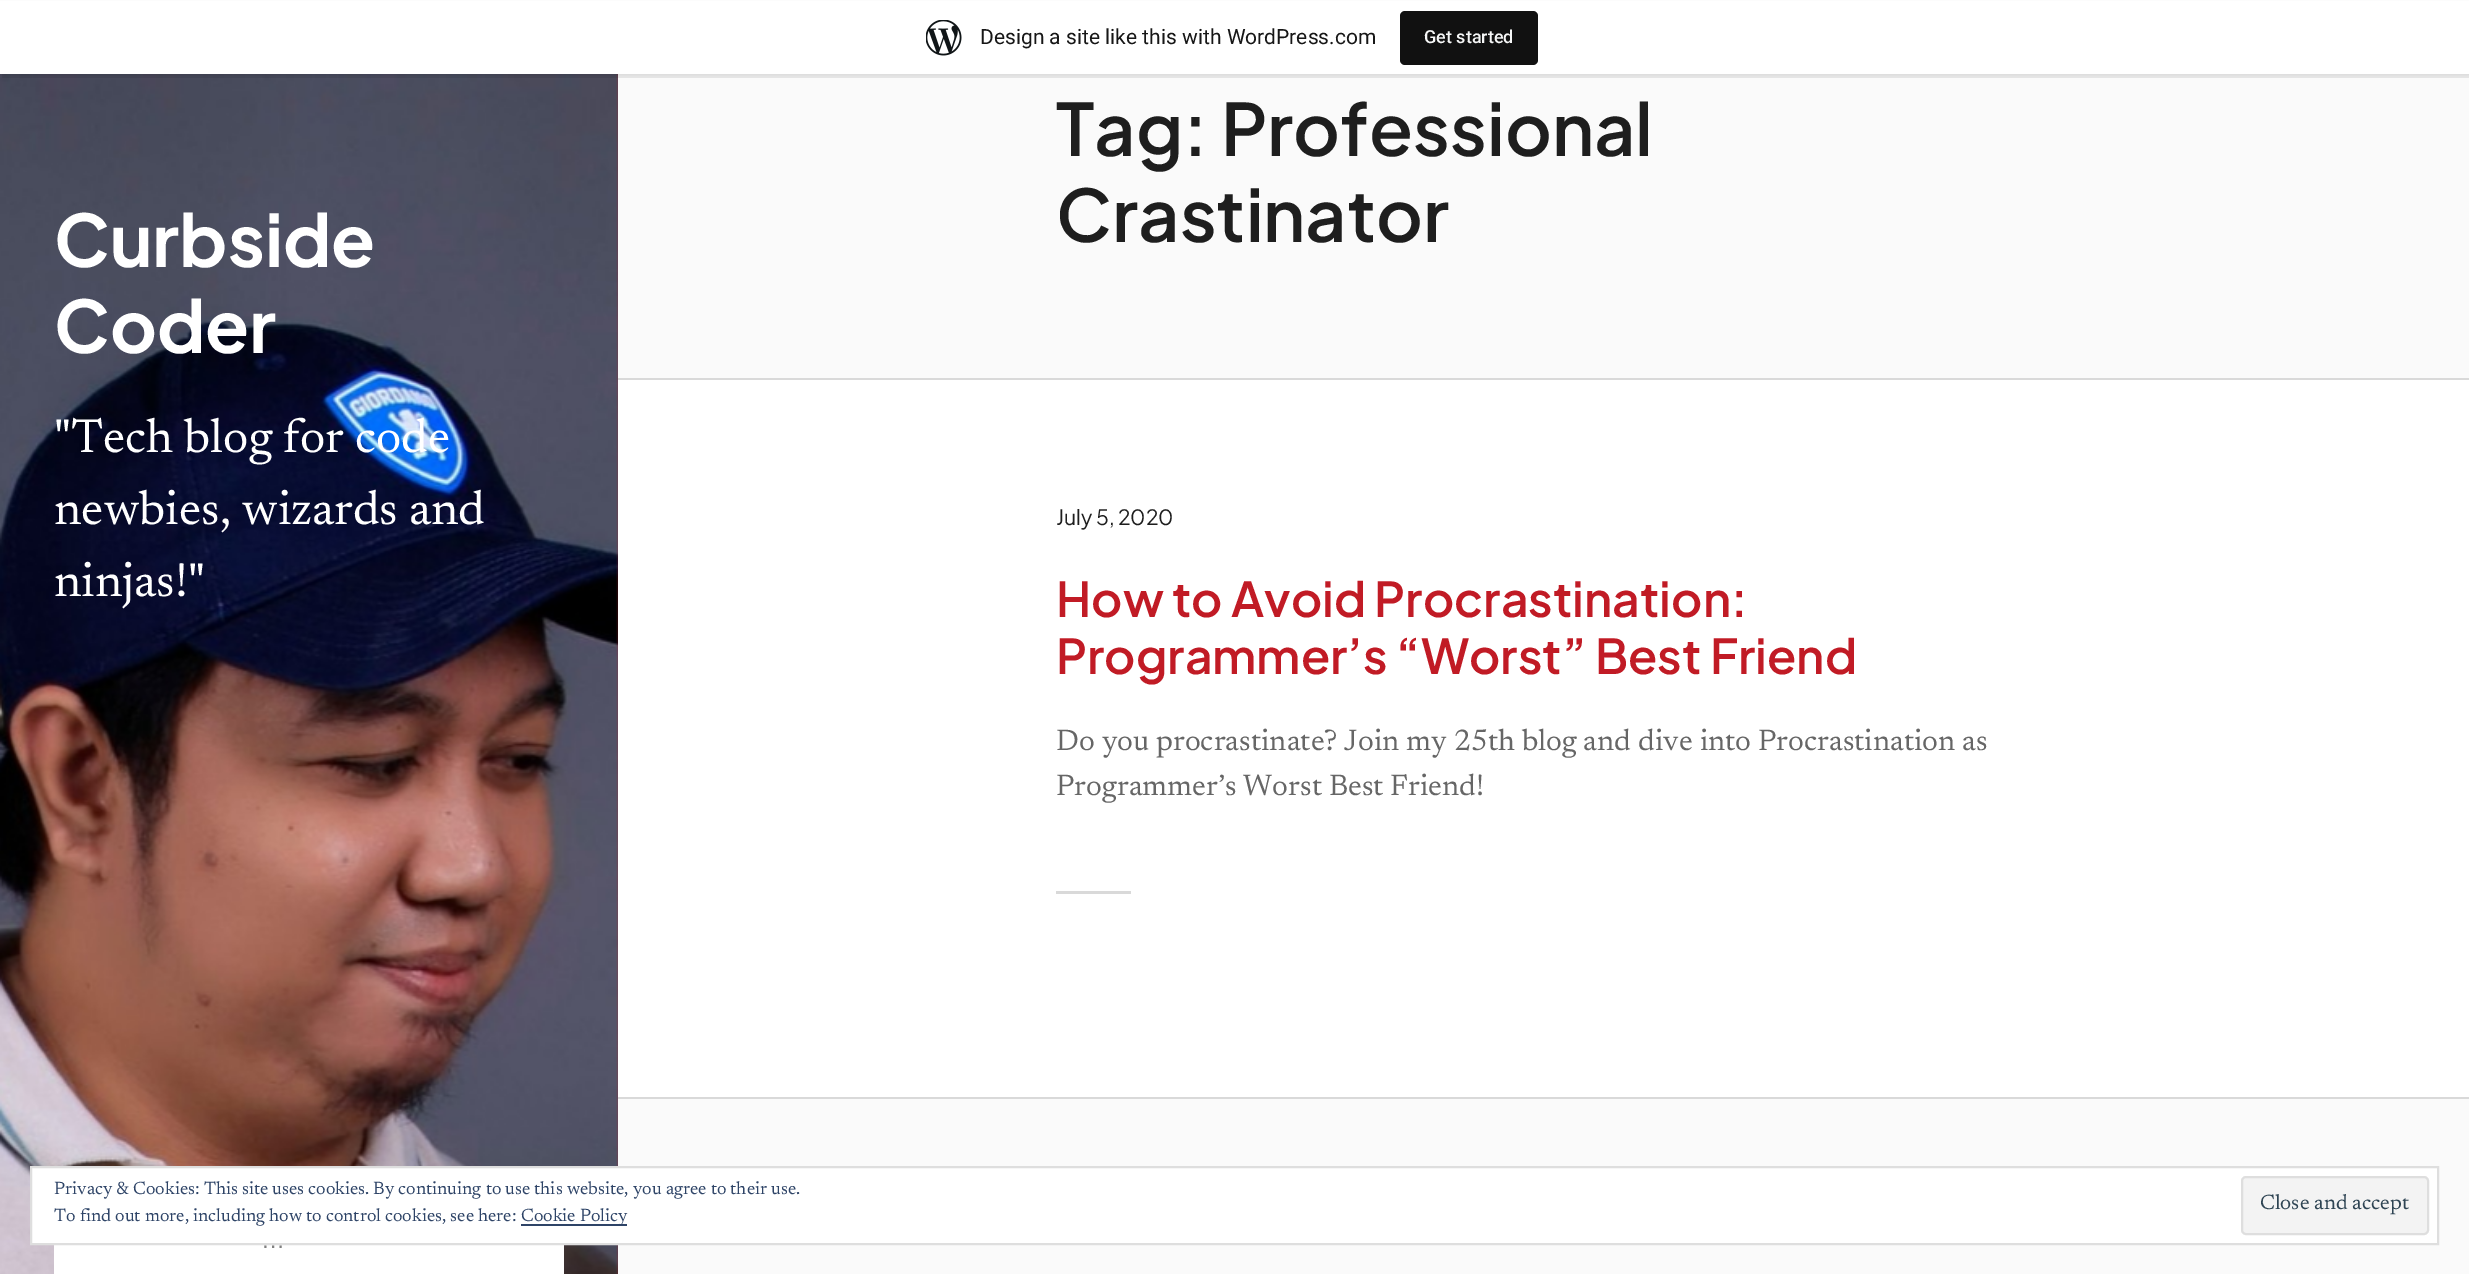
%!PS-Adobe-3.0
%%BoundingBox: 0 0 2469 1274
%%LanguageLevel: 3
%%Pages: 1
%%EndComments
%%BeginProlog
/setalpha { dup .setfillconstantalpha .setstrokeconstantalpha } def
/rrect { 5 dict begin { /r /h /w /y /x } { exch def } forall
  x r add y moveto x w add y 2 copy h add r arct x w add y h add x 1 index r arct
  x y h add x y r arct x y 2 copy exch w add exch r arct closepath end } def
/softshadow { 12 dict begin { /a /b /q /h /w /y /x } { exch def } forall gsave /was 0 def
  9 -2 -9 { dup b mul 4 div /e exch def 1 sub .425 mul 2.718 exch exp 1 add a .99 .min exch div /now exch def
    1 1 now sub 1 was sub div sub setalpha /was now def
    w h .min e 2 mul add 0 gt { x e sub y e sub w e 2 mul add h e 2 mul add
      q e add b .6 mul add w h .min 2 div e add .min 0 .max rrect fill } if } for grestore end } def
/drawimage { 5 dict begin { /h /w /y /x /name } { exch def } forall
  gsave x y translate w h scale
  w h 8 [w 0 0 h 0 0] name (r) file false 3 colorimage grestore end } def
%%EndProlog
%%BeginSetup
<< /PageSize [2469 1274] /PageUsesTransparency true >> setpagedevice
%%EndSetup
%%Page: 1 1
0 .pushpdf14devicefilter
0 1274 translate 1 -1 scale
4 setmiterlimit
1 setgray
0 0 2469 1274 rectfill
(images/2.raw) 0 74 618 1200 drawimage
0.98 setgray
618 74 1851 304 rectfill
0 setgray
0 2 2469 73 0 1.5 0.05 softshadow
0.08 setalpha
newpath 2 74 moveto 2 78 lineto 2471 78 lineto 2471 5 lineto 2469 5 lineto 2469 74 lineto closepath fill
1 setalpha
1 setgray
0 1 2469 73 rectfill
(images/1.raw) 926 20 36 36 drawimage
0.067 setgray
1400 11 138 54 5 rrect fill
1 setgray
54 1245 510 29 rectfill
0.851 setgray
618 378 1851 2 rectfill
1056 891 75 3 rectfill
0.98 setgray
618 1099 1851 175 rectfill
0.851 setgray
618 1097 1851 2 rectfill
1 setgray
newpath 31 1167 moveto 2438 1167 lineto 2438 1244 lineto 31 1244 lineto closepath gsave fill grestore
0.871 setgray
2 setlinewidth
stroke
0.953 setgray
2242 1177 186 57 4 rrect gsave fill grestore
0.871 setgray
stroke
0.18 0.267 0.404 setrgbcolor
521 1224 106 2 rectfill
/Roboto-Regular [21 0 0 -21 0 0] selectfont
0.09 setgray
980 44 moveto (Design a site like this with WordPress.com) show
/Roboto-Medium [18 0 0 -18 0 0] selectfont
0.965 0.969 0.969 setrgbcolor
1424 43 moveto (Get started) show
/PlusJakartaSans-Bold [72 0 0 -72 0 0] selectfont
1 setgray
54 267 moveto (Curbside) show
54 353 moveto (Coder) show
/Newsreader-Regular [48 0 0 -48 0 0] selectfont
54 452 moveto ("Tech blog for code) show
54 524 moveto (newbies, wizards and) show
54 596 moveto (ninjas!") show
/LiberationSans-Regular [24 0 0 -24 0 0] selectfont
0.502 setgray
261 1248 moveto (…) show
/PlusJakartaSans-SemiBold [72 0 0 -72 0 0] selectfont
0.118 setgray
1056 156 moveto (Tag: Professional) show
1056 242 moveto (Crastinator) show
/PlusJakartaSans-Regular [21 0 0 -21 0 0] selectfont
1056 525 moveto (July 5, 2020) show
/PlusJakartaSans-SemiBold [48 0 0 -48 0 0] selectfont
0.757 0.106 0.145 setrgbcolor
1056 617 moveto (How to Avoid Procrastination:) show
1056 674 moveto (Programmer’s “Worst” Best Friend) show
/Newsreader-Regular [30 0 0 -30 0 0] selectfont
0.4 setgray
1056 750 moveto (Do you procrastinate? Join my 25th blog and dive into Procrastination as) show
1056 795 moveto (Programmer’s Worst Best Friend!) show
/Newsreader-Regular [18 0 0 -18 0 0] selectfont
0.18 0.267 0.404 setrgbcolor
54 1194 moveto (Privacy & Cookies: This site uses cookies. By continuing to use this website, you agree to their use.) show
/Newsreader-Regular [21 0 0 -21 0 0] selectfont
0.18 0.267 0.325 setrgbcolor
2260 1209 moveto (Close and accept) show
/Newsreader-Regular [18 0 0 -18 0 0] selectfont
0.18 0.267 0.404 setrgbcolor
54 1221 moveto (To find out more, including how to control cookies, see here:) show
521 1221 moveto (Cookie Policy) show
.poppdf14devicefilter showpage
%%EOF
